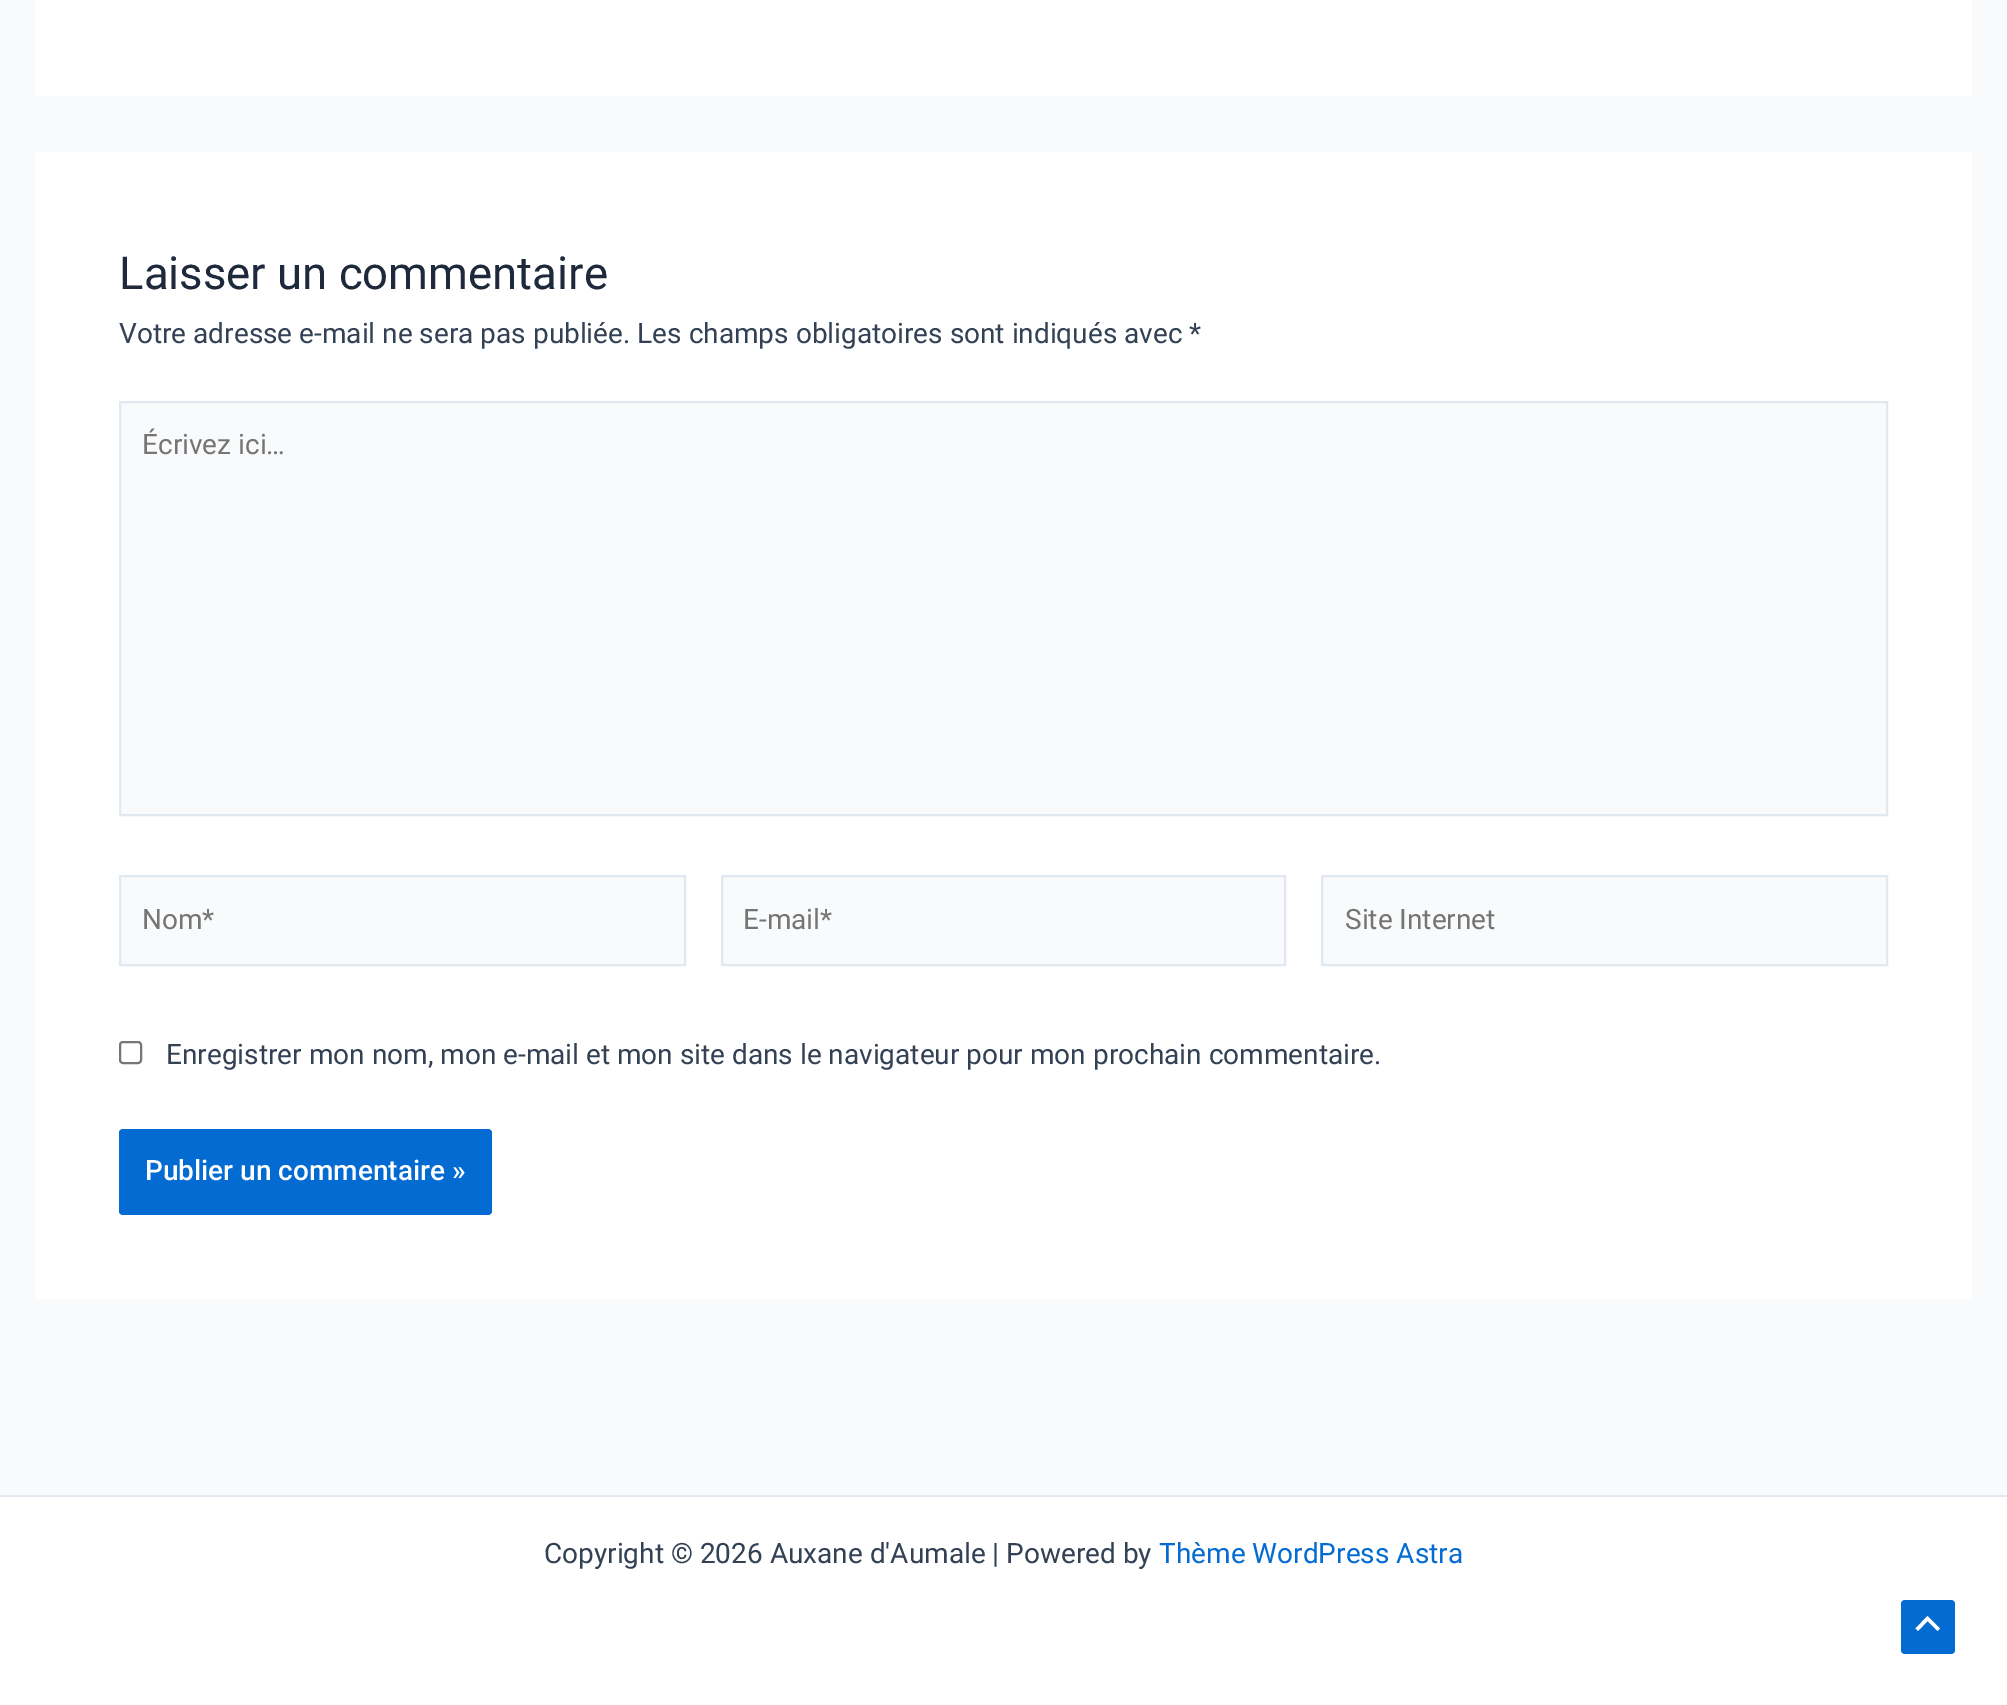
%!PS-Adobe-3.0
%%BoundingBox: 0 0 2007 1705
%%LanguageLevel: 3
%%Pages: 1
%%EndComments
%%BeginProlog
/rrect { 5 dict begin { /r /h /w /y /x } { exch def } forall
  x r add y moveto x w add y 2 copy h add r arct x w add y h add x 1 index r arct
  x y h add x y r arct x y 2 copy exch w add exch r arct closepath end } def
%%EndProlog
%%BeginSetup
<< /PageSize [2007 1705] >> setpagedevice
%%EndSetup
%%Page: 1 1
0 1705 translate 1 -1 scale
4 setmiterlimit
0.976 0.98 0.984 setrgbcolor
0 0 2007 1705 rectfill
1 setgray
35 0 1937 96 rectfill
35 152 1937 1147 rectfill
0.976 0.98 0.984 setrgbcolor
newpath 120 402 moveto 1887 402 lineto 1887 815 lineto 120 815 lineto closepath gsave fill grestore
0.886 0.91 0.941 setrgbcolor
2 setlinewidth
stroke
0.976 0.98 0.984 setrgbcolor
newpath 120 876 moveto 685 876 lineto 685 965 lineto 120 965 lineto closepath gsave fill grestore
0.886 0.91 0.941 setrgbcolor
stroke
0.976 0.98 0.984 setrgbcolor
newpath 722 876 moveto 1285 876 lineto 1285 965 lineto 722 965 lineto closepath gsave fill grestore
0.886 0.91 0.941 setrgbcolor
stroke
0.976 0.98 0.984 setrgbcolor
newpath 1322 876 moveto 1887 876 lineto 1887 965 lineto 1322 965 lineto closepath gsave fill grestore
0.886 0.91 0.941 setrgbcolor
stroke
0.463 setgray
120 1042 21 21 3 rrect stroke
0.016 0.42 0.824 setrgbcolor
119 1129 373 86 4 rrect fill
1 setgray
0 1497 2007 208 rectfill
0.886 0.91 0.941 setrgbcolor
0 1495 2007 2 rectfill
0.016 0.42 0.824 setrgbcolor
1901 1600 54 54 4 rrect fill
1 setgray
newpath 1940 1628.5 moveto 1927.5 1616 lineto 1915.5 1628.5 lineto 1918 1631 lineto 1927.5 1621 lineto 1937.5 1631 lineto closepath fill
/Roboto-Regular [45.5 0 0 -45.5 0 0] selectfont
0.118 0.161 0.231 setrgbcolor
119 289 moveto (Laisser un commentaire) show
/Roboto-Regular [28 0 0 -28 0 0] selectfont
0.2 0.255 0.333 setrgbcolor
119 343 moveto (Votre adresse e-mail ne sera pas publiée. Les champs obligatoires sont indiqués avec *) show
0.459 setgray
142 454 moveto (Écrivez ici…) show
142 929 moveto (Nom*) show
743 929 moveto (E-mail*) show
1345 929 moveto (Site Internet) show
0.2 0.255 0.333 setrgbcolor
166 1064 moveto (Enregistrer mon nom, mon e-mail et mon site dans le navigateur pour mon prochain commentaire.) show
/Roboto-Medium [28 0 0 -28 0 0] selectfont
1 setgray
145 1180 moveto (Publier un commentaire ») show
/Roboto-Regular [28 0 0 -28 0 0] selectfont
0.2 0.255 0.333 setrgbcolor
544 1563 moveto (Copyright © 2026 Auxane d'Aumale | Powered by) show
0.016 0.42 0.824 setrgbcolor
1159 1563 moveto (Thème WordPress Astra) show
showpage
%%EOF
